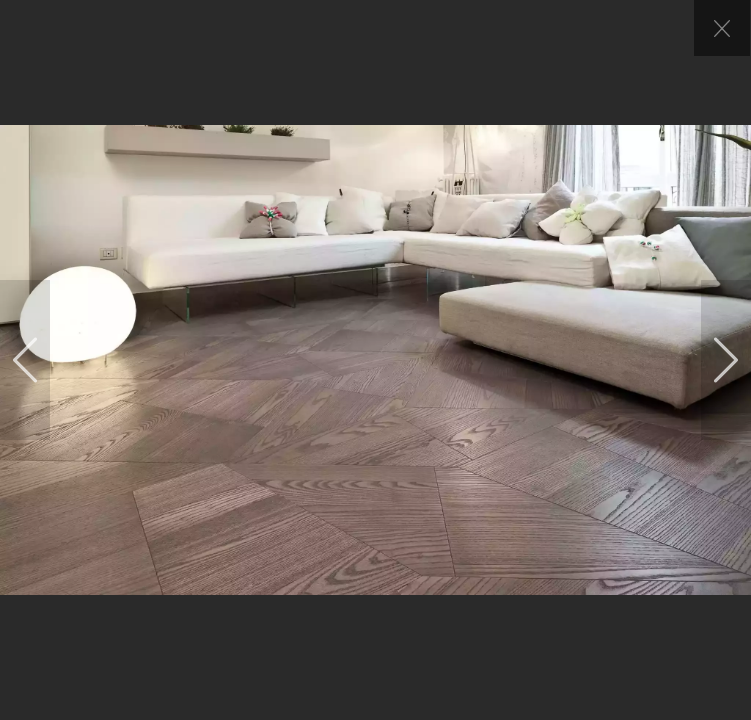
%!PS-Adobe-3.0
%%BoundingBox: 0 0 751 720
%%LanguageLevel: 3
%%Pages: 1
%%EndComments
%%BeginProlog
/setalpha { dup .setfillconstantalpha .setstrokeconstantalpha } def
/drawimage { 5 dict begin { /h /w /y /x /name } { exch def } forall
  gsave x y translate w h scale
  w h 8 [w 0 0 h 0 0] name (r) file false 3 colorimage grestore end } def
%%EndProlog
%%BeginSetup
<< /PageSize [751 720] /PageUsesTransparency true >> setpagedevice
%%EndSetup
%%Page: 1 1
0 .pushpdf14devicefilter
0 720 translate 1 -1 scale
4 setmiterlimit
0.165 setgray
0 0 751 720 rectfill
0.082 setgray
694 0 56 56 rectfill
(images/1.raw) 714 20 16 17 drawimage
(images/2.raw) 0 125 751 470 drawimage
0.14 setalpha
0 setgray
0 280 50 160 rectfill
1 setalpha
(images/3.raw) 13 337 24 46 drawimage
0.14 setalpha
701 280 50 160 rectfill
1 setalpha
(images/4.raw) 714 337 24 46 drawimage
.poppdf14devicefilter showpage
%%EOF
